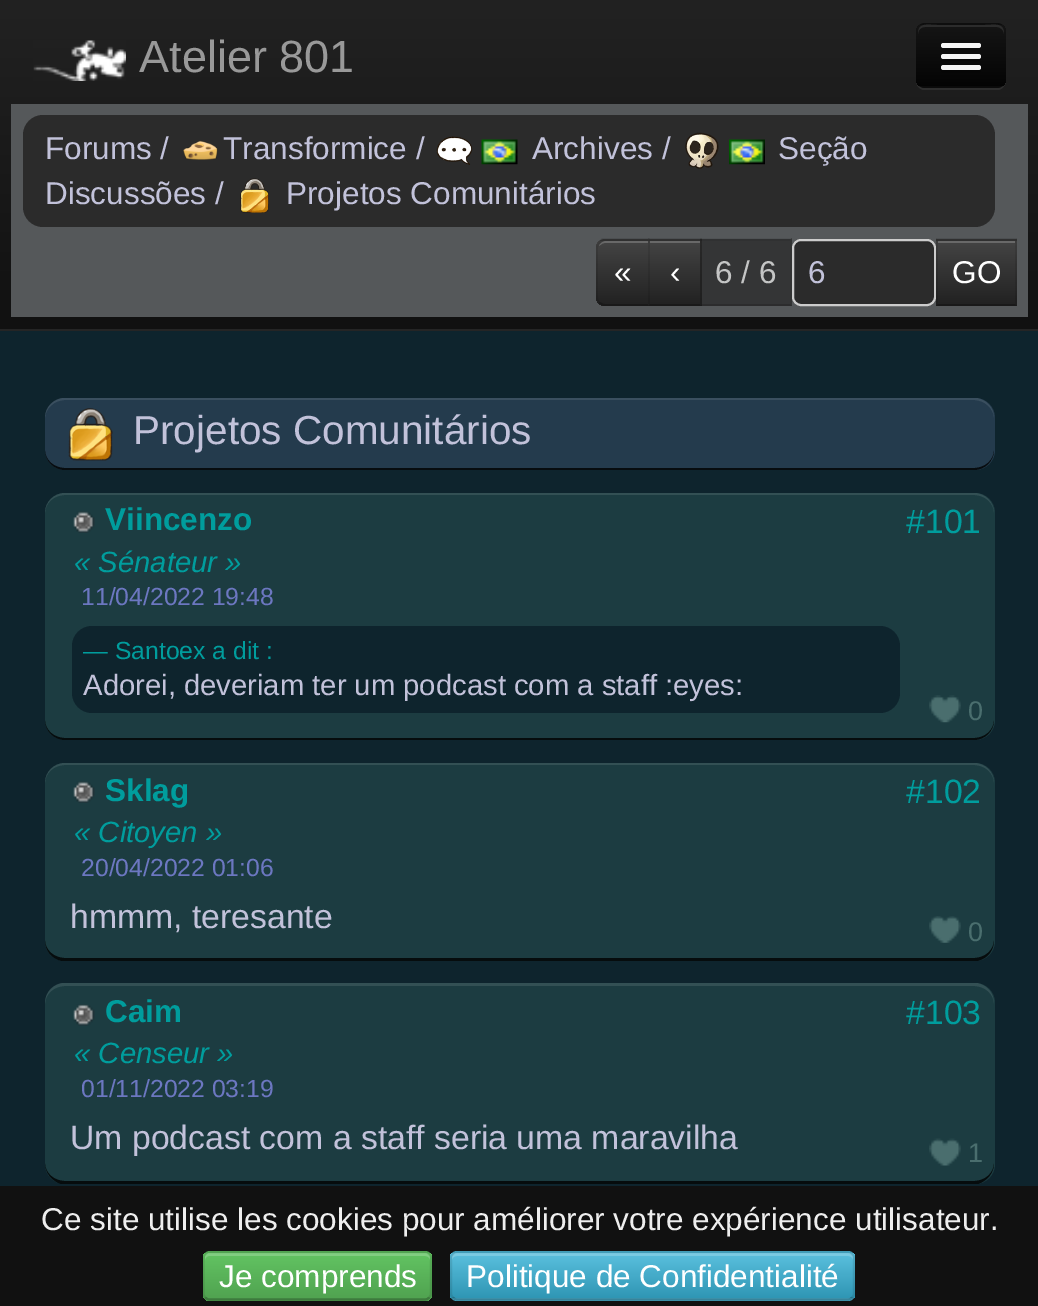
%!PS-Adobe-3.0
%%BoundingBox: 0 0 1038 1306
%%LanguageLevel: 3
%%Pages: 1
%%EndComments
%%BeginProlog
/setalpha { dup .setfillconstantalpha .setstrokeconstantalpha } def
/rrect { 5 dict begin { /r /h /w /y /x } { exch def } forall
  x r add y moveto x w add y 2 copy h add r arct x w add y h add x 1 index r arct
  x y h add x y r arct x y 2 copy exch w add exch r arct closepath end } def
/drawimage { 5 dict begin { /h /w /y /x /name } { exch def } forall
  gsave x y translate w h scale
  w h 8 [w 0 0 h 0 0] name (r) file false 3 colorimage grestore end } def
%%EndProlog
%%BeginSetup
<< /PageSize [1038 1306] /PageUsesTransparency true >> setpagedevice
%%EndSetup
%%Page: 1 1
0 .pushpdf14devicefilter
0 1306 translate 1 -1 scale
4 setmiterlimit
0.055 0.141 0.176 setrgbcolor
0 0 1038 1306 rectfill
gsave newpath 0 0 moveto 1038 0 lineto 1038 329 lineto 0 329 lineto closepath clip newpath
<< /ShadingType 2 /ColorSpace /DeviceRGB /Coords [520 0 520 329] /Extend [true true] /Function << /FunctionType 2 /Domain [0 1] /C0 [0.133 0.133 0.133] /C1 [0.067 0.067 0.067] /N 1 >> >> shfill grestore
0.145 setgray
0 329 1038 2 rectfill
(images/1.raw) 33 40 93 41 drawimage
0.18 setgray
newpath 916 81 moveto 917 85 lineto 918 87 920 89 923 90 curveto 999 90 lineto 1001 89 1003 88 1004 86 curveto 1006 83 lineto 1006 32 lineto 1006 79 lineto 1006 84 1002 88 997 88 curveto 925 88 lineto 921 88 917 85 916 81 curveto closepath fill
0.055 setgray
916 23 90 65 9 rrect fill
gsave
916 23 90 65 9 rrect clip newpath
gsave newpath 916 25 moveto 1006 25 lineto 1006 86 lineto 916 86 lineto closepath clip newpath
<< /ShadingType 2 /ColorSpace /DeviceRGB /Coords [961 25 961 86] /Extend [true true] /Function << /FunctionType 2 /Domain [0 1] /C0 [0.082 0.082 0.082] /C1 [0.016 0.016 0.016] /N 1 >> >> shfill grestore
grestore
0.173 setgray
newpath 925 27 moveto 997 27 lineto 1000 27 1004 30 1004 34 curveto 1004 22 994 25 985 25 curveto 937 25 lineto 928 25 918 22 918 34 curveto 918 30 921 27 925 27 curveto closepath fill
0.25 setalpha
0 setgray
2.2 setlinewidth
newpath 1002.5 84.5 moveto 1001 86 999 86.5 997 86.5 curveto 925 86.5 lineto 922.5 86.5 920.5 86 919 84.5 curveto stroke
1 setalpha
0.043 setgray
newpath 941 47 moveto 939 51 948 50 949 50 curveto 973 50 lineto 973 50 983 51 981 46 curveto 979 47 lineto 975 48 942 48 941 47 curveto closepath fill
0.961 setgray
941 43 40 5 2.5 rrect fill
0.031 setgray
newpath 941 58 moveto 940 62 948 61 949 61 curveto 973 61 lineto 974 61 983 62 981 57 curveto 979 58 lineto 975 59 942 59 941 58 curveto closepath fill
0.961 setgray
941 54 40 5 2.5 rrect fill
0.024 setgray
newpath 941 69 moveto 939 74 949 73 949 73 curveto 973 73 lineto 973 73 984 74 980 69 curveto 979 70 lineto 976 70 943 70 941 69 curveto closepath fill
0.961 setgray
941 65 40 5 2.5 rrect fill
0.333 0.345 0.353 setrgbcolor
11 104 1017 213 rectfill
0.169 setgray
23 115 972 112 20 rrect fill
(images/2.raw) 183 140 35 20 drawimage
(images/3.raw) 436 136 37 29 drawimage
(images/4.raw) 481 139 37 26 drawimage
(images/5.raw) 685 132 34 37 drawimage
(images/6.raw) 729 139 36 26 drawimage
(images/7.raw) 240 178 29 35 drawimage
0.212 setgray
newpath 605 239 moveto 650 239 lineto 650 306 lineto 605 306 lineto 600 306 596 302 596 297 curveto 596 248 lineto 596 243 600 239 605 239 curveto closepath fill
gsave
newpath 605 239 moveto 650 239 lineto 650 306 lineto 605 306 lineto 600 306 596 302 596 297 curveto 596 248 lineto 596 243 600 239 605 239 curveto closepath clip newpath
gsave newpath 596 241 moveto 650 241 lineto 650 306 lineto 605 306 lineto 600 306 596 302 596 297 curveto closepath clip newpath
<< /ShadingType 2 /ColorSpace /DeviceRGB /Coords [623 241 623 367] /Extend [true true] /Function << /FunctionType 3 /Domain [0 1] /Functions [<< /FunctionType 2 /Domain [0 1] /C0 [0.267 0.267 0.267] /C1 [0.133 0.133 0.133] /N 1 >> << /FunctionType 2 /Domain [0 1] /C0 [0.133 0.133 0.133] /C1 [0.133 0.133 0.133] /N 1 >>] /Bounds [0.5] /Encode [0 1 0 1] >> >> shfill grestore
grestore
0.412 setgray
newpath 605 243 moveto 648 243 lineto 648 241 lineto 606 241 lineto 603 241 600 243 599 246 curveto 601 244 603 243 605 243 curveto closepath fill
0.1 setalpha
0 setgray
newpath 605 241 moveto 604 241 602 242 601 243 curveto 599 241 lineto 602 238 lineto 650 238 lineto 648 241 lineto closepath fill
0.25 setalpha
newpath 605 306 moveto 650 306 lineto 648 304 lineto 605 304 lineto 603 304 602 303 600 302 curveto 599 303 lineto 600 305 603 306 605 306 curveto closepath fill
0.1 setalpha
newpath 596 246 moveto 599 241 lineto 601 243 lineto 599 244 598 246 598 248 curveto 598 297 lineto 598 299 599 301 600 302 curveto 599 303 lineto 598 302 597 301 596 299 curveto closepath fill
1 setalpha
0.212 setgray
648 239 54 2 rectfill
gsave newpath 648 241 moveto 702 241 lineto 702 306 lineto 648 306 lineto closepath clip newpath
<< /ShadingType 2 /ColorSpace /DeviceRGB /Coords [675 241 675 367] /Extend [true true] /Function << /FunctionType 3 /Domain [0 1] /Functions [<< /FunctionType 2 /Domain [0 1] /C0 [0.267 0.267 0.267] /C1 [0.133 0.133 0.133] /N 1 >> << /FunctionType 2 /Domain [0 1] /C0 [0.133 0.133 0.133] /C1 [0.133 0.133 0.133] /N 1 >>] /Bounds [0.5] /Encode [0 1 0 1] >> >> shfill grestore
0.412 setgray
650 241 50 2 rectfill
0.1 setalpha
0 setgray
newpath 648 238 moveto 702 238 lineto 700 241 lineto 650 241 lineto closepath fill
newpath 702 238 moveto 702 306 lineto 700 304 lineto 700 241 lineto closepath fill
1 setalpha
0.098 setgray
newpath 702 306 moveto 648 306 lineto 650 304 lineto 700 304 lineto closepath fill
0.1 setalpha
0 setgray
newpath 648 306 moveto 648 238 lineto 650 241 lineto 650 304 lineto closepath fill
0.65 setalpha
0.133 setgray
700 239 92 67 rectfill
0.07 setalpha
0 setgray
newpath 700 238 moveto 792 238 lineto 790 241 lineto 702 241 lineto closepath fill
1 setalpha
0.196 0.2 0.2 setrgbcolor
newpath 792 238 moveto 792 306 lineto 790 304 lineto 790 241 lineto closepath fill
0.16 setalpha
0 setgray
newpath 792 306 moveto 700 306 lineto 702 304 lineto 790 304 lineto closepath fill
0.07 setalpha
newpath 700 306 moveto 700 238 lineto 702 241 lineto 702 304 lineto closepath fill
1 setalpha
0.169 setgray
792 239 144 67 9 rrect fill
0.157 setgray
newpath 801 243 moveto 927 243 lineto 931 243 934 246 934 250 curveto 934 248 lineto 934 244 931 241 927 241 curveto 801 241 lineto 797 241 794 244 794 248 curveto 794 250 lineto 794 246 797 243 801 243 curveto closepath fill
0.8 setgray
2 setlinewidth
793 240 142 65 8 rrect stroke
0.212 setgray
936 239 81 2 rectfill
gsave newpath 936 241 moveto 1017 241 lineto 1017 306 lineto 936 306 lineto closepath clip newpath
<< /ShadingType 2 /ColorSpace /DeviceRGB /Coords [977 241 977 367] /Extend [true true] /Function << /FunctionType 3 /Domain [0 1] /Functions [<< /FunctionType 2 /Domain [0 1] /C0 [0.267 0.267 0.267] /C1 [0.133 0.133 0.133] /N 1 >> << /FunctionType 2 /Domain [0 1] /C0 [0.133 0.133 0.133] /C1 [0.133 0.133 0.133] /N 1 >>] /Bounds [0.5] /Encode [0 1 0 1] >> >> shfill grestore
0.412 setgray
938 241 77 2 rectfill
0.1 setalpha
0 setgray
newpath 936 238 moveto 1017 238 lineto 1015 241 lineto 938 241 lineto closepath fill
newpath 1017 238 moveto 1017 306 lineto 1015 304 lineto 1015 241 lineto closepath fill
1 setalpha
0.098 setgray
newpath 1017 306 moveto 936 306 lineto 938 304 lineto 1015 304 lineto closepath fill
0.1 setalpha
0 setgray
newpath 936 306 moveto 936 238 lineto 938 241 lineto 938 304 lineto closepath fill
1 setalpha
0.141 0.231 0.302 setrgbcolor
45 398 950 72 20 rrect fill
0.1 setalpha
1 setgray
newpath 65 400 moveto 974 400 lineto 985 400 994 409 994 418 curveto 994 408 987 400 977 398 curveto 62 398 lineto 52 400 45 408 45 418 curveto 45 409 54 400 65 400 curveto closepath fill
0.8 setalpha
0 setgray
newpath 974 470 moveto 985 470 994 461 994 450 curveto 994 460 985 468 974 468 curveto 65 468 lineto 54 468 45 460 45 450 curveto 45 461 54 470 65 470 curveto closepath fill
1 setalpha
(images/8.raw) 68 408 45 53 drawimage
0.11 0.235 0.255 setrgbcolor
45 493 950 247 20 rrect fill
0.1 setalpha
1 setgray
newpath 65 493 moveto 54 493 45 502 45 513 curveto 45 503 54 495 65 495 curveto 974 495 lineto 985 495 994 503 994 513 curveto 994 502 985 493 974 493 curveto closepath fill
0.8 setalpha
0 setgray
newpath 974 740 moveto 985 740 994 731 994 720 curveto 994 730 985 738 974 738 curveto 65 738 lineto 54 738 45 730 45 720 curveto 45 731 54 740 65 740 curveto closepath fill
1 setalpha
(images/9.raw) 73 511 22 22 drawimage
(images/10.raw) 929 695 32 28 drawimage
0.055 0.141 0.176 setrgbcolor
72 626 828 87 20 rrect fill
0.11 0.235 0.255 setrgbcolor
45 763 950 198 20 rrect fill
0.1 setalpha
1 setgray
newpath 65 763 moveto 54 763 45 772 45 783 curveto 45 773 54 765 65 765 curveto 974 765 lineto 985 765 994 773 994 783 curveto 994 772 985 763 974 763 curveto closepath fill
0.8 setalpha
0 setgray
newpath 977 961 moveto 987 959 994 951 994 940 curveto 994 950 985 958 974 958 curveto 65 958 lineto 54 958 45 950 45 940 curveto 45 951 52 959 62 961 curveto closepath fill
1 setalpha
(images/11.raw) 73 781 22 22 drawimage
(images/12.raw) 929 916 32 27 drawimage
0.11 0.235 0.255 setrgbcolor
45 983 950 201 20 rrect fill
0.1 setalpha
1 setgray
newpath 65 986 moveto 974 986 lineto 985 986 994 994 994 1004 curveto 994 993 987 985 977 983 curveto 62 983 lineto 52 985 45 993 45 1004 curveto 45 994 54 986 65 986 curveto closepath fill
0.8 setalpha
0 setgray
newpath 978 1184 moveto 987 1181 994 1173 994 1163 curveto 994 1173 985 1181 974 1181 curveto 65 1181 lineto 54 1181 45 1173 45 1163 curveto 45 1173 52 1181 61 1184 curveto closepath fill
1 setalpha
(images/13.raw) 73 1004 22 22 drawimage
(images/14.raw) 929 1138 32 28 drawimage
0.067 setgray
0 1186 1038 120 rectfill
0.357 0.718 0.357 setrgbcolor
203 1251 229 50 7 rrect fill
gsave
203 1251 229 50 7 rrect clip newpath
gsave newpath 203 1253 moveto 432 1253 lineto 432 1294 lineto 432 1298 429 1301 425 1301 curveto 210 1301 lineto 206 1301 203 1298 203 1294 curveto closepath clip newpath
<< /ShadingType 2 /ColorSpace /DeviceRGB /Coords [317 1253 317 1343] /Extend [true true] /Function << /FunctionType 3 /Domain [0 1] /Functions [<< /FunctionType 2 /Domain [0 1] /C0 [0.384 0.769 0.384] /C1 [0.318 0.639 0.318] /N 1 >> << /FunctionType 2 /Domain [0 1] /C0 [0.318 0.639 0.318] /C1 [0.318 0.639 0.318] /N 1 >>] /Bounds [0.5] /Encode [0 1 0 1] >> >> shfill grestore
grestore
0.2 setalpha
1 setgray
newpath 209 1256 moveto 425 1256 lineto 428 1256 430 1258 430 1260 curveto 430 1258 lineto 430 1255 428 1253 425 1253 curveto 210 1253 lineto 207 1253 205 1255 205 1258 curveto 205 1260 lineto 205 1258 207 1256 209 1256 curveto closepath fill
0.25 setalpha
0 setgray
2.2 setlinewidth
newpath 429 1297.5 moveto 428 1299 426.5 1299.5 425 1299.5 curveto 209 1299.5 lineto 208 1299.5 206.5 1299 205.5 1297.5 curveto stroke
0.1 setalpha
newpath 205.5 1297.5 moveto 204 1296.5 203.5 1295 203.5 1294 curveto 203.5 1258 lineto 203.5 1256.5 204 1255 205.5 1254 curveto 206.5 1252.5 208 1252 209 1252 curveto 425 1252 lineto 426.5 1252 428 1252.5 429 1254 curveto 430.5 1255 431 1256.5 431 1258 curveto 431 1294 lineto 431 1295 430.5 1296.5 429 1297.5 curveto stroke
1 setalpha
0.286 0.686 0.804 setrgbcolor
450 1251 405 50 7 rrect fill
gsave
450 1251 405 50 7 rrect clip newpath
gsave newpath 450 1253 moveto 855 1253 lineto 855 1298 lineto 450 1298 lineto closepath clip newpath
<< /ShadingType 2 /ColorSpace /DeviceRGB /Coords [653 1253 653 1298] /Extend [true true] /Function << /FunctionType 2 /Domain [0 1] /C0 [0.357 0.753 0.871] /C1 [0.184 0.588 0.706] /N 1 >> >> shfill grestore
grestore
0.2 setalpha
1 setgray
newpath 457 1256 moveto 848 1256 lineto 851 1256 853 1258 853 1260 curveto 853 1258 lineto 853 1255 851 1253 848 1253 curveto 457 1253 lineto 454 1253 452 1255 452 1258 curveto 452 1260 lineto 452 1258 454 1256 457 1256 curveto closepath fill
0.25 setalpha
0 setgray
newpath 852 1297.5 moveto 851 1299 849.5 1299.5 848 1299.5 curveto 457 1299.5 lineto 455.5 1299.5 454 1299 453 1297.5 curveto stroke
0.1 setalpha
newpath 453 1297.5 moveto 451.5 1296.5 451 1295 451 1294 curveto 451 1258 lineto 451 1256.5 451.5 1255 453 1254 curveto 454 1252.5 455.5 1252 457 1252 curveto 848 1252 lineto 849.5 1252 851 1252.5 852 1254 curveto 853.5 1255 854 1256.5 854 1258 curveto 854 1294 lineto 854 1295 853.5 1296.5 852 1297.5 curveto stroke
/LiberationSans-Regular [45 0 0 -45 0 0] selectfont
1 setalpha
0.6 setgray
139 72 moveto (Atelier 801) show
/LiberationSans-Regular [31.5 0 0 -31.5 0 0] selectfont
0.761 0.761 0.855 setrgbcolor
45 159 moveto (Forums /) show
223 159 moveto (Transformice /) show
532 159 moveto (Archives /) show
778 159 moveto (Seção) show
45 204 moveto (Discussões /) show
286 204 moveto (Projetos Comunitários) show
1 setgray
614 283 moveto («) show
670 283 moveto (‹) show
0.769 0.773 0.773 setrgbcolor
715 283 moveto (6 / 6) show
0.761 0.761 0.855 setrgbcolor
808 283 moveto (6) show
1 setgray
952 283 moveto (GO) show
/LiberationSans-Regular [40.5 0 0 -40.5 0 0] selectfont
0.761 0.761 0.855 setrgbcolor
133 444 moveto (Projetos Comunitários) show
/LiberationSans-Bold [31.5 0 0 -31.5 0 0] selectfont
0 0.616 0.616 setrgbcolor
105 530 moveto (Viincenzo) show
/LiberationSans-Italic [29.25 0 0 -29.25 0 0] selectfont
74 572 moveto (« Sénateur ») show
/LiberationSans-Regular [24.75 0 0 -24.75 0 0] selectfont
0.424 0.467 0.757 setrgbcolor
81 605 moveto (11/04/2022 19:48) show
/LiberationSans-Regular [33.75 0 0 -33.75 0 0] selectfont
0 0.616 0.616 setrgbcolor
906 533 moveto (#101) show
/LiberationSans-Regular [27 0 0 -27 0 0] selectfont
0.29 0.431 0.431 setrgbcolor
968 720 moveto (0) show
/LiberationSans-Regular [24.75 0 0 -24.75 0 0] selectfont
0 0.616 0.616 setrgbcolor
83 659 moveto (— Santoex a dit :) show
/LiberationSans-Regular [29.25 0 0 -29.25 0 0] selectfont
0.761 0.761 0.855 setrgbcolor
83 695 moveto (Adorei, deveriam ter um podcast com a staff :eyes:) show
/LiberationSans-Bold [31.5 0 0 -31.5 0 0] selectfont
0 0.616 0.616 setrgbcolor
105 801 moveto (Sklag) show
/LiberationSans-Italic [29.25 0 0 -29.25 0 0] selectfont
74 842 moveto (« Citoyen ») show
/LiberationSans-Regular [24.75 0 0 -24.75 0 0] selectfont
0.424 0.467 0.757 setrgbcolor
81 876 moveto (20/04/2022 01:06) show
/LiberationSans-Regular [33.75 0 0 -33.75 0 0] selectfont
0 0.616 0.616 setrgbcolor
906 803 moveto (#102) show
/LiberationSans-Regular [27 0 0 -27 0 0] selectfont
0.29 0.431 0.431 setrgbcolor
968 941 moveto (0) show
/LiberationSans-Regular [33.75 0 0 -33.75 0 0] selectfont
0.761 0.761 0.855 setrgbcolor
70 928 moveto (hmmm, teresante) show
/LiberationSans-Bold [31.5 0 0 -31.5 0 0] selectfont
0 0.616 0.616 setrgbcolor
105 1022 moveto (Caim) show
/LiberationSans-Italic [29.25 0 0 -29.25 0 0] selectfont
74 1063 moveto (« Censeur ») show
/LiberationSans-Regular [24.75 0 0 -24.75 0 0] selectfont
0.424 0.467 0.757 setrgbcolor
81 1097 moveto (01/11/2022 03:19) show
/LiberationSans-Regular [33.75 0 0 -33.75 0 0] selectfont
0 0.616 0.616 setrgbcolor
906 1024 moveto (#103) show
/LiberationSans-Regular [27 0 0 -27 0 0] selectfont
0.29 0.431 0.431 setrgbcolor
968 1162 moveto (1) show
/LiberationSans-Regular [33.75 0 0 -33.75 0 0] selectfont
0.761 0.761 0.855 setrgbcolor
70 1149 moveto (Um podcast com a staff seria uma maravilha) show
/LiberationSans-Regular [31.5 0 0 -31.5 0 0] selectfont
0.933 setgray
41 1230 moveto (Ce site utilise les cookies pour améliorer votre expérience utilisateur.) show
1 setgray
219 1287 moveto (Je comprends) show
466 1287 moveto (Politique de Confidentialité) show
.poppdf14devicefilter showpage
%%EOF
